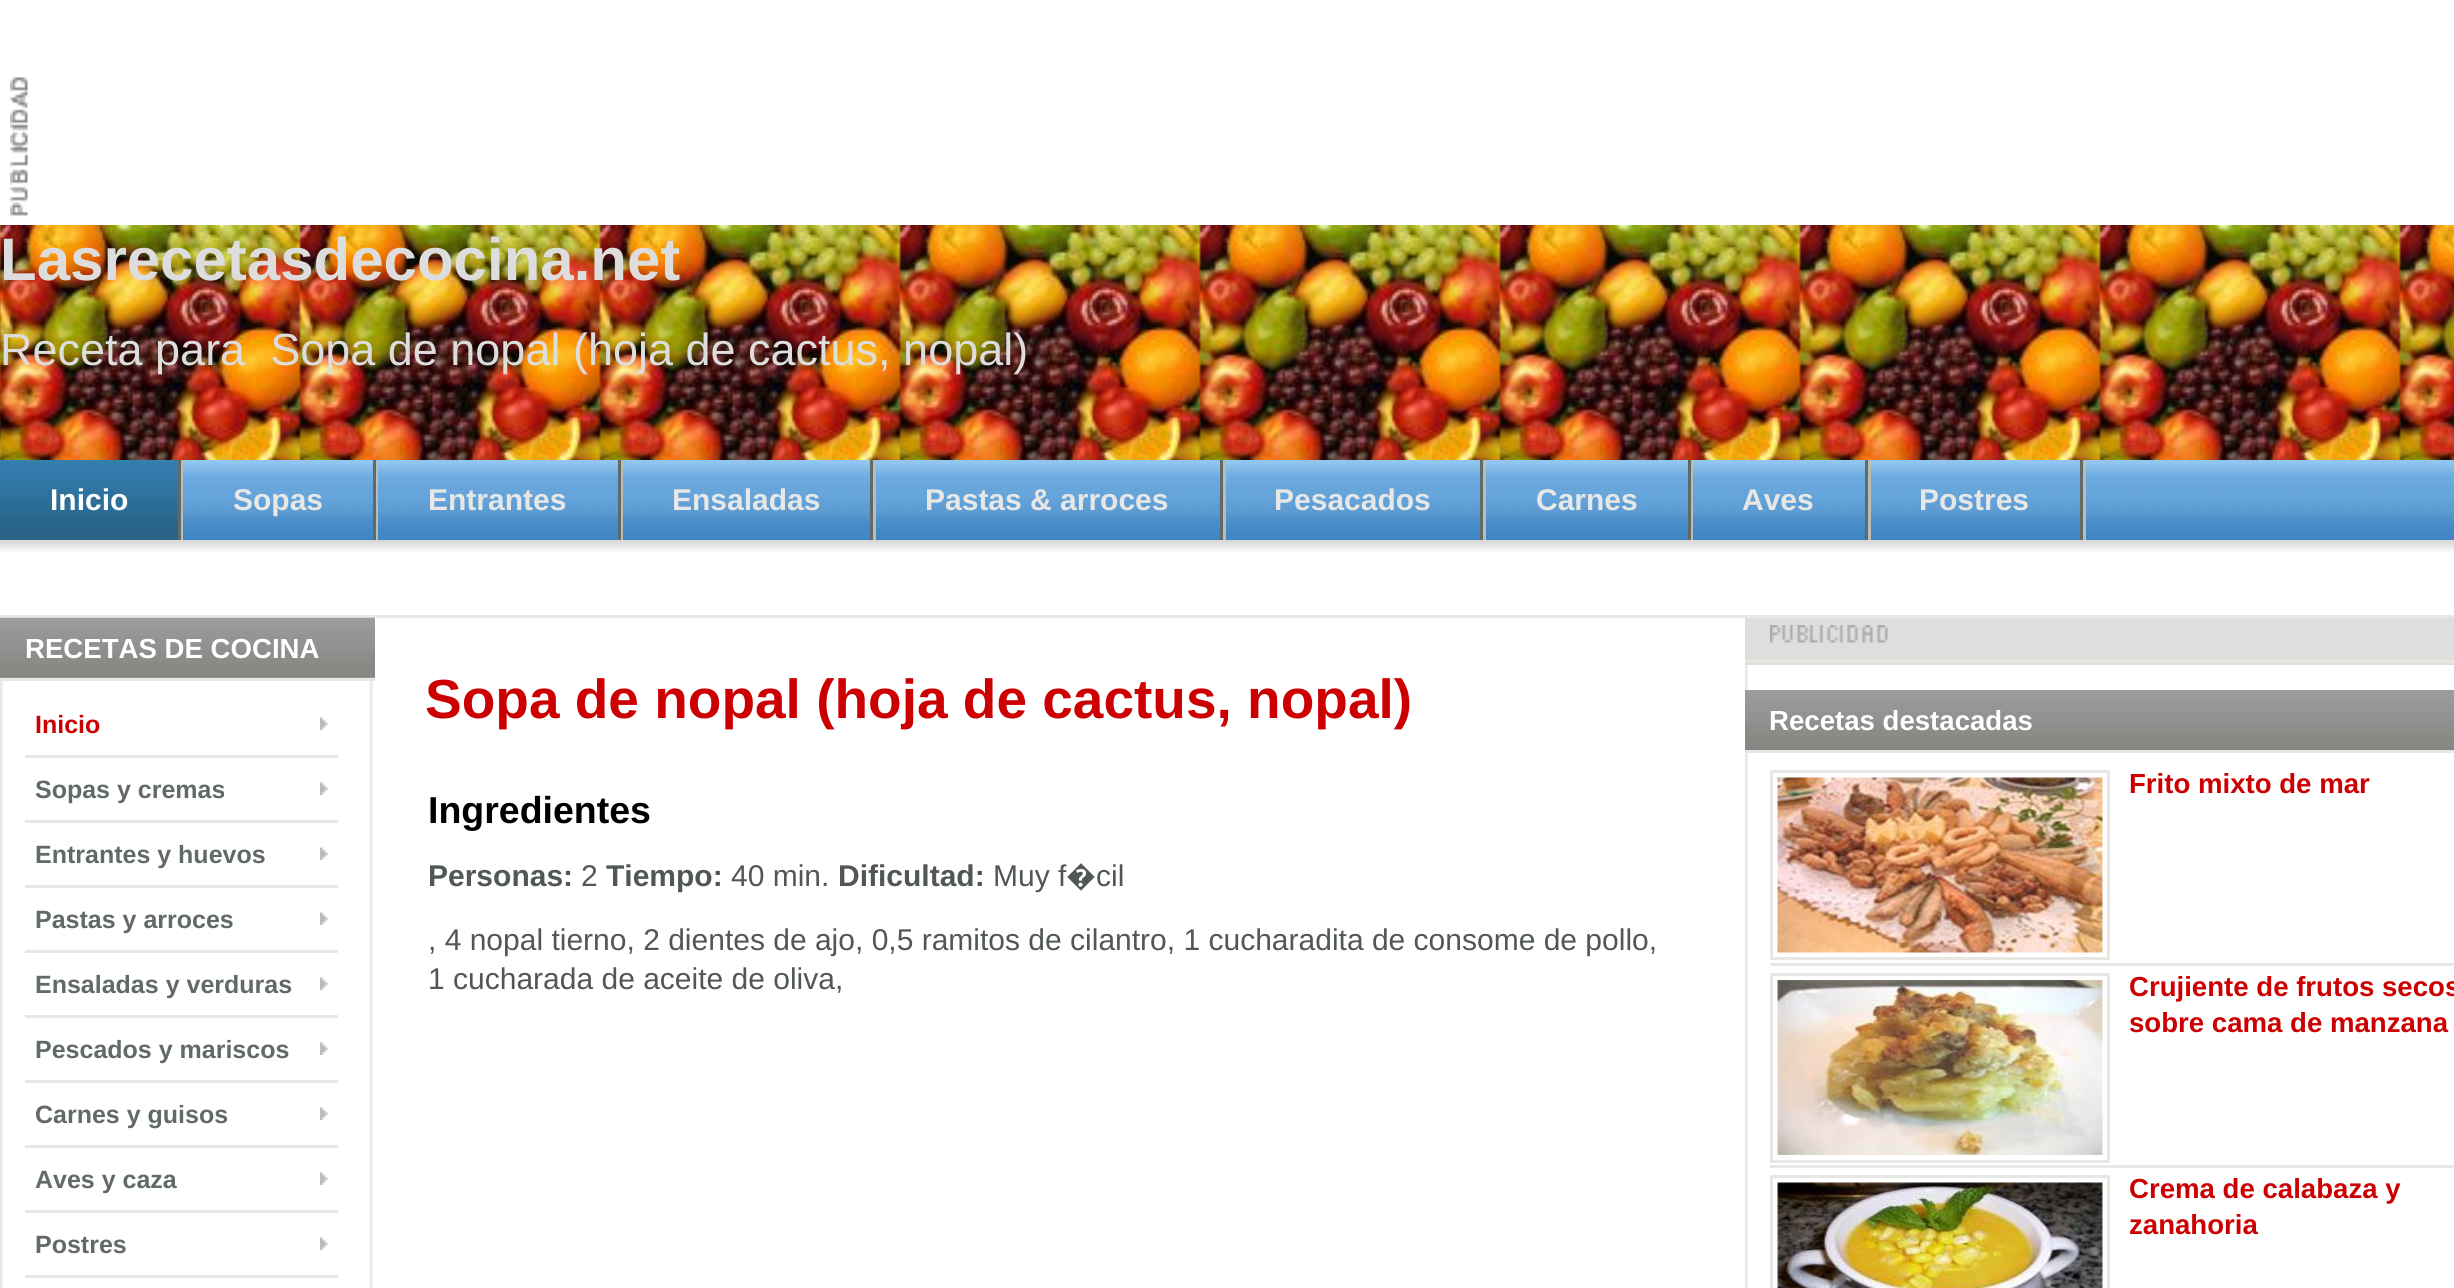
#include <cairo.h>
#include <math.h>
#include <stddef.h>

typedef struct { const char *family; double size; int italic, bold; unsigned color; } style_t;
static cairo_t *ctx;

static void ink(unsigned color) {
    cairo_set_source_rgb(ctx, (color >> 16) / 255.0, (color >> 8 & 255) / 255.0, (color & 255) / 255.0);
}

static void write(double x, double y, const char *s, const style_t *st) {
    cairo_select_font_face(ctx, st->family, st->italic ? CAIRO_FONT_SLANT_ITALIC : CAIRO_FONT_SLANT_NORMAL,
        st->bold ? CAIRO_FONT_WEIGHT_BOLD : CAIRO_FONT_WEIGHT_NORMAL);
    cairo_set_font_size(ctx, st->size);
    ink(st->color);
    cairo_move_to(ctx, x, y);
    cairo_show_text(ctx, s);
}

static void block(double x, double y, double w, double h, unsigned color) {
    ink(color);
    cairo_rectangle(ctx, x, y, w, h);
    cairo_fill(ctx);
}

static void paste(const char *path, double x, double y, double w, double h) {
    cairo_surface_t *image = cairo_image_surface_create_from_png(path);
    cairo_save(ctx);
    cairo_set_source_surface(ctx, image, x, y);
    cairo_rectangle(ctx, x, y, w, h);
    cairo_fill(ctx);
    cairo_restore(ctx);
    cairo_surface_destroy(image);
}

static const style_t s1 = {"Liberation Sans", 60, 0, 1, 0xdddddd};
static const style_t s2 = {"Liberation Sans", 45, 0, 0, 0xdddddd};
static const style_t s3 = {"Liberation Sans", 30, 0, 1, 0xffffff};
static const style_t s4 = {"Liberation Sans", 30, 0, 1, 0xe7e8e6};
static const style_t s5 = {"Liberation Sans", 27.6, 0, 1, 0xffffff};
static const style_t s6 = {"Liberation Sans", 25, 0, 1, 0xcc0000};
static const style_t s7 = {"Liberation Sans", 25, 0, 1, 0x626a69};
static const style_t s8 = {"Liberation Sans", 55, 0, 1, 0xcc0000};
static const style_t s9 = {"Liberation Sans", 37.5, 0, 1, 0x000000};
static const style_t s10 = {"Liberation Sans", 30, 0, 1, 0x515756};
static const style_t s11 = {"Liberation Sans", 30, 0, 0, 0x515756};
static const style_t s12 = {"Noto Sans", 30, 0, 0, 0x515756};
static const style_t s13 = {"Liberation Sans", 27.6, 0, 1, 0xcc0000};

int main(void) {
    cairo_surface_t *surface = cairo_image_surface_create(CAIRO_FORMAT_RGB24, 2454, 1288);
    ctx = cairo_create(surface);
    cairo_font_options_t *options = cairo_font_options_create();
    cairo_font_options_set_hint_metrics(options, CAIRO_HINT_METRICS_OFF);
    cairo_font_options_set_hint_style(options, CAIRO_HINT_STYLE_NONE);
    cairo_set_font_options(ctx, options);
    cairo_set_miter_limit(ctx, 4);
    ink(0xffffff);
    cairo_paint(ctx);
    paste("pic1.png", 10, 77, 18, 141);
    paste("pic2.png", 0, 225, 2454, 235);
    write(0, 280, "Lasrecetasdecocina.net", &s1);
    write(0, 365, "Receta para  Sopa de nopal (hoja de cactus, nopal)", &s2);
    paste("pic3.png", 0, 540, 2454, 12);
    paste("pic4.png", 183, 460, 2271, 80);
    block(181, 460, 2, 80, 0xbabdb6);
    paste("pic5.png", 0, 460, 178, 80);
    block(178, 460, 3, 80, 0x626a69);
    write(50, 510, "Inicio", &s3);
    block(376, 460, 2, 80, 0xbabdb6);
    block(373, 460, 3, 80, 0x626a69);
    write(233, 510, "Sopas", &s4);
    block(621, 460, 2, 80, 0xbabdb6);
    block(618, 460, 3, 80, 0x626a69);
    write(428, 510, "Entrantes", &s4);
    block(873, 460, 3, 80, 0xbabdb6);
    block(870, 460, 3, 80, 0x626a69);
    write(672, 510, "Ensaladas", &s4);
    block(1223, 460, 3, 80, 0xbabdb6);
    block(1220, 460, 3, 80, 0x626a69);
    write(925, 510, "Pastas & arroces", &s4);
    block(1483, 460, 3, 80, 0xbabdb6);
    block(1480, 460, 3, 80, 0x626a69);
    write(1274, 510, "Pesacados", &s4);
    block(1691, 460, 2, 80, 0xbabdb6);
    block(1688, 460, 3, 80, 0x626a69);
    write(1536, 510, "Carnes", &s4);
    block(1868, 460, 3, 80, 0xbabdb6);
    block(1865, 460, 3, 80, 0x626a69);
    write(1742, 510, "Aves", &s4);
    block(2083, 460, 3, 80, 0xbabdb6);
    block(2080, 460, 3, 80, 0x626a69);
    write(1919, 510, "Postres", &s4);
    paste("pic6.png", 0, 681, 373, 607);
    block(0, 615, 2454, 3, 0xe7e8e6);
    paste("pic7.png", 1745, 617, 5, 671);
    block(0, 677, 375, 1, 0xa8a8a8);
    paste("pic8.png", 0, 617, 375, 61);
    block(0, 678, 375, 3, 0xe7e8e6);
    write(25, 658, "RECETAS DE COCINA", &s5);
    paste("pic9.png", 320, 717, 8, 13);
    block(25, 755, 313, 3, 0xe7e8e6);
    write(35, 733, "Inicio", &s6);
    paste("pic9.png", 320, 782, 8, 13);
    block(25, 820, 313, 3, 0xe7e8e6);
    write(35, 798, "Sopas y cremas", &s7);
    paste("pic9.png", 320, 847, 8, 13);
    block(25, 885, 313, 3, 0xe7e8e6);
    write(35, 863, "Entrantes y huevos", &s7);
    paste("pic9.png", 320, 912, 8, 13);
    block(25, 950, 313, 3, 0xe7e8e6);
    write(35, 928, "Pastas y arroces", &s7);
    paste("pic9.png", 320, 977, 8, 13);
    block(25, 1015, 313, 3, 0xe7e8e6);
    write(35, 993, "Ensaladas y verduras", &s7);
    paste("pic9.png", 320, 1042, 8, 13);
    block(25, 1080, 313, 3, 0xe7e8e6);
    write(35, 1058, "Pescados y mariscos", &s7);
    paste("pic9.png", 320, 1107, 8, 13);
    block(25, 1145, 313, 3, 0xe7e8e6);
    write(35, 1123, "Carnes y guisos", &s7);
    paste("pic10.png", 320, 1172, 8, 13);
    block(25, 1210, 313, 3, 0xe7e8e6);
    write(35, 1188, "Aves y caza", &s7);
    paste("pic9.png", 320, 1237, 8, 13);
    block(25, 1275, 313, 3, 0xe7e8e6);
    write(35, 1253, "Postres", &s7);
    write(425, 718, "Sopa de nopal (hoja de cactus, nopal)", &s8);
    write(428, 823, "Ingredientes", &s9);
    write(428, 886, "Personas:", &s10);
    write(581, 886, "2", &s11);
    write(606, 886, "Tiempo:", &s10);
    write(731, 886, "40 min.", &s11);
    write(838, 886, "Dificultad:", &s10);
    write(993, 886, "Muy f", &s11);
    write(1066, 886, "�", &s12);
    write(1096, 886, "cil", &s11);
    write(428, 950, ", 4 nopal tierno, 2 dientes de ajo, 0,5 ramitos de cilantro, 1 cucharadita de consome de pollo,", &s11);
    write(428, 989, "1 cucharada de aceite de oliva,", &s11);
    block(1745, 618, 709, 47, 0xdededc);
    paste("pic11.png", 1770, 625, 118, 18);
    block(1745, 660, 709, 3, 0xe8e6e0);
    paste("pic12.png", 1745, 690, 709, 60);
    block(1745, 750, 709, 3, 0xe7e8e6);
    write(1769, 730, "Recetas destacadas", &s5);
    block(1770, 963, 684, 3, 0xe7e8e6);
    cairo_rectangle(ctx, 1771.5, 771.5, 337, 187);
    cairo_set_line_width(ctx, 3);
    cairo_stroke(ctx);
    paste("pic13.png", 1777, 777, 326, 176);
    write(2129, 793, "Frito mixto de mar", &s13);
    block(1770, 1165, 684, 3, 0xe7e8e6);
    cairo_rectangle(ctx, 1771.5, 974.5, 337, 187);
    cairo_stroke(ctx);
    paste("pic14.png", 1777, 980, 326, 175);
    write(2129, 996, "Crujiente de frutos secos", &s13);
    write(2129, 1032, "sobre cama de manzana", &s13);
    cairo_rectangle(ctx, 1771.5, 1176.5, 337, 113);
    ink(0xe7e8e6);
    cairo_stroke(ctx);
    paste("pic15.png", 1777, 1182, 326, 106);
    write(2129, 1198, "Crema de calabaza y", &s13);
    write(2129, 1234, "zanahoria", &s13);
    cairo_surface_write_to_png(surface, "screenshot.png");
    cairo_font_options_destroy(options);
    cairo_destroy(ctx);
    cairo_surface_destroy(surface);
    return 0;
}
